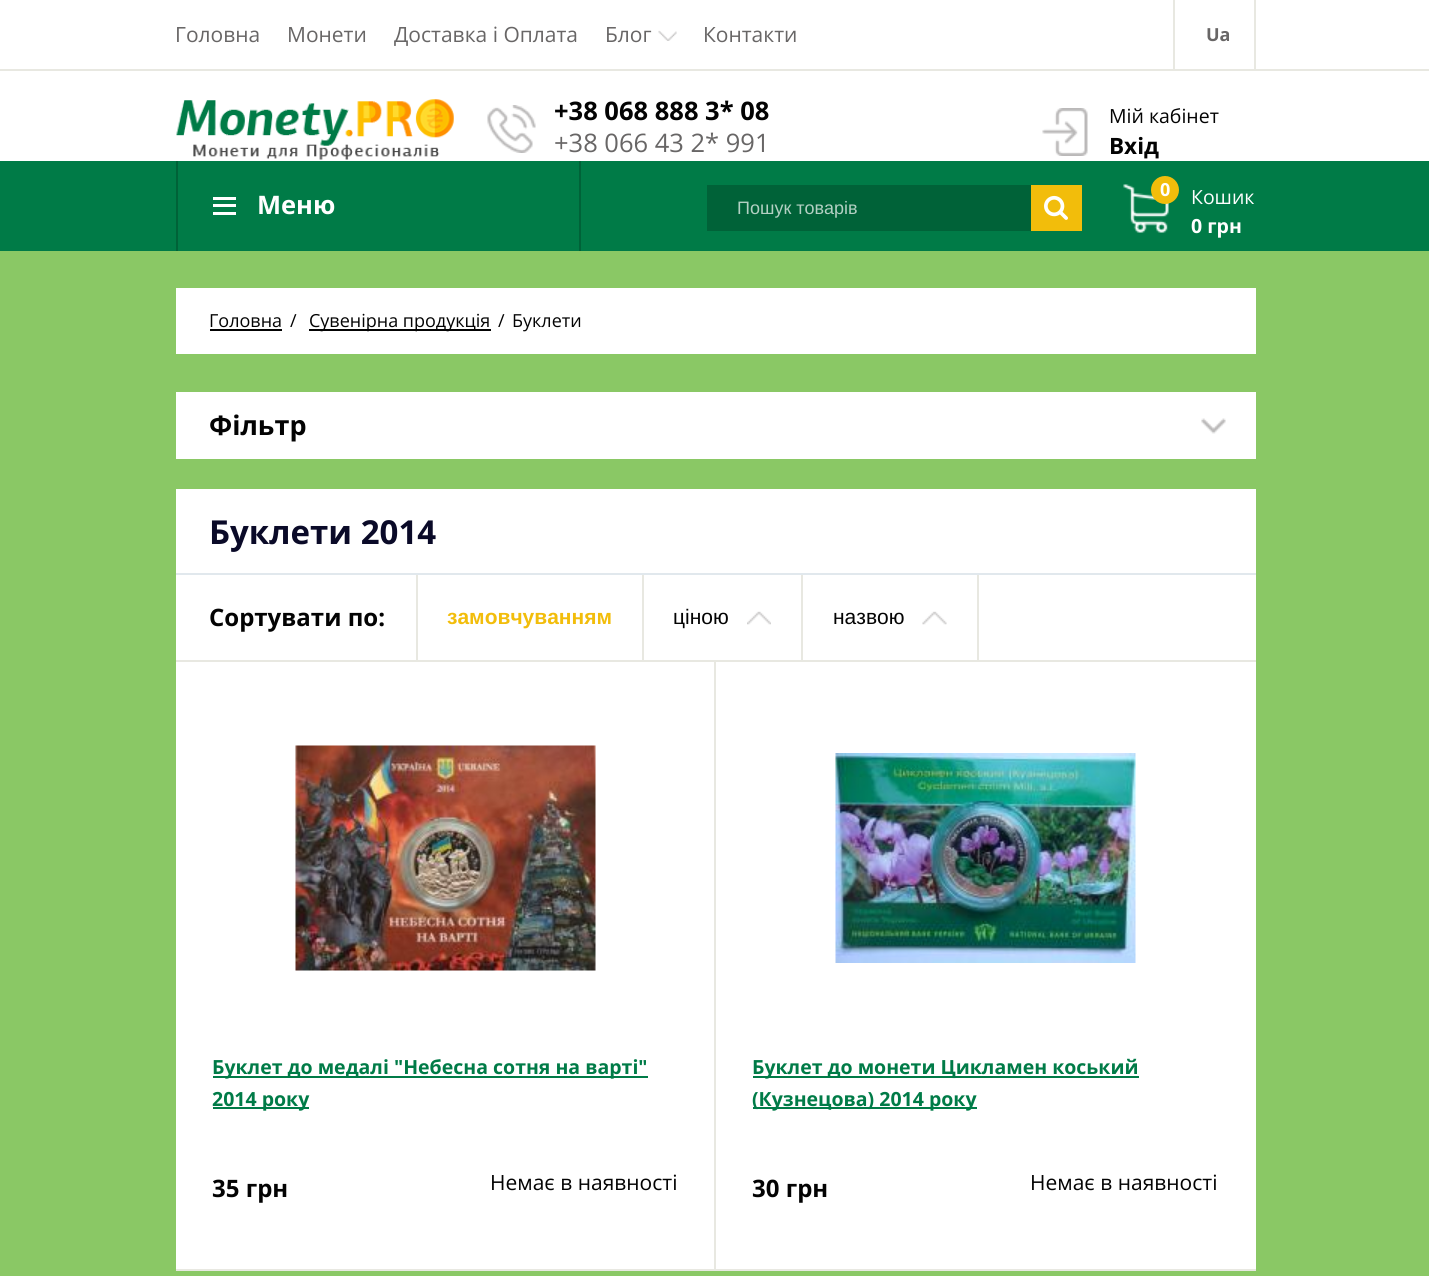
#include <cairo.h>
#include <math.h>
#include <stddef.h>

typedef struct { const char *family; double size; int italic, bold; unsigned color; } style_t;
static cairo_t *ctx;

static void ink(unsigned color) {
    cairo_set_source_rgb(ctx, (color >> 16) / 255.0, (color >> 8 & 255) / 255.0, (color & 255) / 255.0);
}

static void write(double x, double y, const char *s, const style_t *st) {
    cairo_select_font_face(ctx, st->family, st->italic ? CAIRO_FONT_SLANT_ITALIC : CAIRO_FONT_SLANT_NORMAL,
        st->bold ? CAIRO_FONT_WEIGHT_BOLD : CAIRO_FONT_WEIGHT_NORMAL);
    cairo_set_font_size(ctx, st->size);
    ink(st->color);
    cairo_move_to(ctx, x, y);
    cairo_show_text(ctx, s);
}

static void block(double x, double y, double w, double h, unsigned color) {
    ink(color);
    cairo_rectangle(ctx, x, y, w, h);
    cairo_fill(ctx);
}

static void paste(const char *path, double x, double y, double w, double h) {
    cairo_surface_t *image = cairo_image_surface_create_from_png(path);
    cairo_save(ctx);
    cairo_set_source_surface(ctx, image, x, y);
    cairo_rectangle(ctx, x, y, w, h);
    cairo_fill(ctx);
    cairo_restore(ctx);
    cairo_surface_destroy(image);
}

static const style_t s1 = {"Open Sans", 21, 0, 0, 0x686666};
static const style_t s2 = {"Open Sans", 18, 0, 1, 0x686666};
static const style_t s3 = {"Open Sans", 25.5, 0, 1, 0x030303};
static const style_t s4 = {"Open Sans", 25.5, 0, 0, 0x686666};
static const style_t s5 = {"Open Sans", 19.5, 0, 0, 0x030303};
static const style_t s6 = {"Open Sans", 22.5, 0, 1, 0x030303};
static const style_t s7 = {"Open Sans", 25.5, 0, 1, 0xffffff};
static const style_t s8 = {"Liberation Sans", 18, 0, 0, 0xb3d0c3};
static const style_t s9 = {"Open Sans", 18, 0, 1, 0xffffff};
static const style_t s10 = {"Open Sans", 19.5, 0, 0, 0xffffff};
static const style_t s11 = {"Open Sans", 19.5, 0, 1, 0xffffff};
static const style_t s12 = {"Open Sans", 18, 0, 0, 0x030303};
static const style_t s13 = {"Open Sans", 27, 0, 1, 0x030303};
static const style_t s14 = {"Open Sans", 33, 0, 1, 0x0a0a28};
static const style_t s15 = {"Open Sans", 24, 0, 1, 0x030303};
static const style_t s16 = {"Liberation Sans", 21, 0, 1, 0xf2bd0b};
static const style_t s17 = {"Liberation Sans", 21, 0, 0, 0x030303};
static const style_t s18 = {"Open Sans", 19.5, 0, 1, 0x007b47};
static const style_t s19 = {"Open Sans", 21, 0, 0, 0x030303};

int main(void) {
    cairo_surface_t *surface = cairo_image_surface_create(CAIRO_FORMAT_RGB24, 1429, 1276);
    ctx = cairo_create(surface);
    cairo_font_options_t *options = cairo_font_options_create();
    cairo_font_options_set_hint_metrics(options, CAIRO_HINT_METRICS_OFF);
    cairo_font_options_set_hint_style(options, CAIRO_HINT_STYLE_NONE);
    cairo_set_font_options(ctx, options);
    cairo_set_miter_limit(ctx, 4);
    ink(0x8ac865);
    cairo_paint(ctx);
    block(0, 0, 1429, 161, 0xffffff);
    block(0, 69, 1429, 2, 0xe8e8e1);
    write(175, 42, "Головна", &s1);
    write(287, 42, "Монети", &s1);
    write(394, 42, "Доставка і Оплата", &s1);
    write(605, 42, "Блог", &s1);
    paste("pic1.png", 658, 30, 19, 11);
    write(703, 42, "Контакти", &s1);
    block(1254, 0, 2, 69, 0xe8e8e1);
    block(1173, 0, 2, 69, 0xe8e8e1);
    write(1206, 41, "Ua", &s2);
    paste("pic2.png", 176, 99, 278, 61);
    paste("pic3.png", 487, 105, 49, 48);
    write(554, 120, "+38 068 888 3* 08", &s3);
    write(554, 152, "+38 066 43 2* 991", &s4);
    paste("pic4.png", 1042, 108, 46, 48);
    write(1109, 123, "Мій кабінет", &s5);
    write(1109, 154, "Вхід", &s6);
    block(0, 161, 1429, 90, 0x007b47);
    block(579, 161, 2, 90, 0x006238);
    block(176, 161, 2, 90, 0x006238);
    block(213, 197, 23, 3, 0xffffff);
    write(257, 214, "Меню", &s7);
    block(213, 204, 23, 3, 0xffffff);
    block(213, 212, 23, 3, 0xffffff);
    block(707, 185, 324, 46, 0x006238);
    write(737, 214, "Пошук товарів", &s8);
    block(1031, 185, 51, 46, 0xf2bd0b);
    paste("pic5.png", 1044, 195, 24, 25);
    paste("pic6.png", 1123, 184, 46, 49);
    cairo_arc(ctx, 1165, 190, 14, 0, 2 * M_PI);
    cairo_fill(ctx);
    write(1160, 196, "0", &s9);
    write(1191, 204, "Кошик", &s10);
    write(1191, 233, "0 грн", &s11);
    block(176, 288, 1080, 66, 0xffffff);
    write(209, 327, "Головна", &s12);
    block(210, 329, 72, 2, 0x030303);
    write(290, 327, "/", &s12);
    block(309, 329, 182, 2, 0x030303);
    write(309, 327, "Сувенірна продукція", &s12);
    write(498, 327, "/", &s12);
    write(512, 327, "Буклети", &s12);
    block(176, 392, 1080, 67, 0xffffff);
    write(209, 435, "Фільтр", &s13);
    paste("pic7.png", 1201, 418, 25, 16);
    block(176, 489, 1080, 84, 0xffffff);
    block(176, 573, 1080, 2, 0xe1e8ed);
    write(209, 544, "Буклети 2014", &s14);
    block(176, 575, 1080, 85, 0xffffff);
    block(176, 660, 1080, 2, 0xe8e8e1);
    block(416, 575, 2, 85, 0xe8e8e1);
    write(209, 626, "Сортувати по:", &s15);
    block(642, 575, 2, 85, 0xe8e8e1);
    write(447, 624, "замовчуванням", &s16);
    block(801, 575, 2, 85, 0xe8e8e1);
    write(673, 624, "ціною", &s17);
    paste("pic8.png", 747, 611, 24, 14);
    block(977, 575, 2, 85, 0xe8e8e1);
    write(833, 624, "назвою", &s17);
    paste("pic9.png", 922, 611, 25, 14);
    block(176, 662, 538, 607, 0xffffff);
    block(714, 662, 2, 607, 0xe8e8e1);
    block(176, 1269, 1080, 2, 0xe8e8e1);
    paste("pic10.png", 295, 745, 301, 226);
    block(213, 1076, 435, 2, 0x007b47);
    write(212, 1074, "Буклет до медалі \"Небесна сотня на варті\"", &s18);
    block(213, 1107, 96, 2, 0x007b47);
    write(212, 1106, "2014 року", &s18);
    write(212, 1197, "35 грн", &s15);
    write(490, 1190, "Немає в наявності", &s19);
    block(716, 662, 540, 607, 0xffffff);
    paste("pic11.png", 835, 753, 301, 210);
    block(753, 1076, 386, 2, 0x007b47);
    write(752, 1074, "Буклет до монети Цикламен коський", &s18);
    block(753, 1107, 224, 2, 0x007b47);
    write(752, 1106, "(Кузнецова) 2014 року", &s18);
    write(752, 1197, "30 грн", &s15);
    write(1030, 1190, "Немає в наявності", &s19);
    cairo_surface_write_to_png(surface, "screenshot.png");
    cairo_font_options_destroy(options);
    cairo_destroy(ctx);
    cairo_surface_destroy(surface);
    return 0;
}
